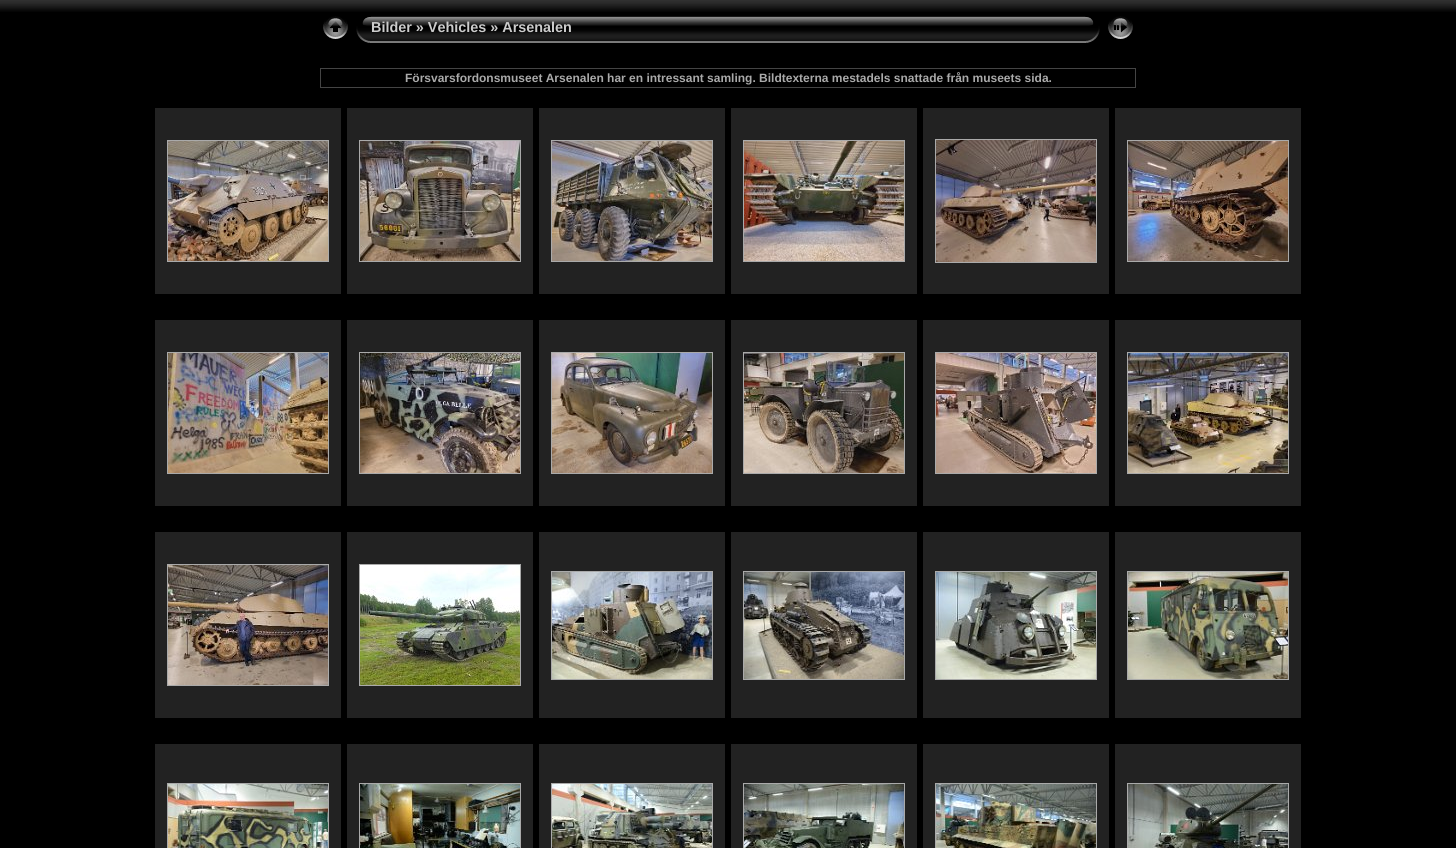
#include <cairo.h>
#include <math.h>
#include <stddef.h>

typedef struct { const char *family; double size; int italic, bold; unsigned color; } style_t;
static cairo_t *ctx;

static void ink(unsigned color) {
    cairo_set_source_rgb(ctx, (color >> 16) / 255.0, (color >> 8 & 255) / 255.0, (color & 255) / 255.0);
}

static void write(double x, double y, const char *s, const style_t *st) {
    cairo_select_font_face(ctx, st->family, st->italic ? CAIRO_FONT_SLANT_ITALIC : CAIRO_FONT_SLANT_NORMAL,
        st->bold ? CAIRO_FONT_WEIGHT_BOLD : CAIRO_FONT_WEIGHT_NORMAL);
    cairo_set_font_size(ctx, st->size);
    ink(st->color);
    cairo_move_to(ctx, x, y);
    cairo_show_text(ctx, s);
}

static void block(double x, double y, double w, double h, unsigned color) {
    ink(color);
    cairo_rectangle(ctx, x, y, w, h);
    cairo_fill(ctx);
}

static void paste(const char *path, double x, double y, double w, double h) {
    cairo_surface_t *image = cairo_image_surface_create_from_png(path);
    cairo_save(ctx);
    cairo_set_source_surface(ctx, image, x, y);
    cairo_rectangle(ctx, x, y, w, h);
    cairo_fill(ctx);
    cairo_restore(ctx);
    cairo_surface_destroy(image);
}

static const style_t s1 = {"Liberation Sans", 14.4, 0, 1, 0xcccccc};
static const style_t s2 = {"Liberation Sans", 12, 0, 1, 0xaaaaaa};

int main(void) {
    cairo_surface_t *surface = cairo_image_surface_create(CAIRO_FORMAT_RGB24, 1456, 848);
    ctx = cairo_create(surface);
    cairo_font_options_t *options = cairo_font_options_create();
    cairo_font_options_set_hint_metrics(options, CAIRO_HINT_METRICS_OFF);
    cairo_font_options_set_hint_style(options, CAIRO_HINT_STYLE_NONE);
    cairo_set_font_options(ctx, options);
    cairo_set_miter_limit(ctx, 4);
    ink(0x000000);
    cairo_paint(ctx);
    paste("pic1.png", 0, 0, 1456, 12);
    paste("pic2.png", 323, 16, 25, 23);
    paste("pic3.png", 356, 16, 15, 27);
    paste("pic4.png", 371, 16, 714, 27);
    write(371, 32, "Bilder » Vehicles » Arsenalen", &s1);
    paste("pic5.png", 1085, 16, 15, 27);
    paste("pic6.png", 1108, 16, 25, 23);
    block(320, 68, 816, 1, 0x444444);
    block(1135, 68, 1, 20, 0x444444);
    block(320, 87, 816, 1, 0x444444);
    block(320, 68, 1, 20, 0x444444);
    write(405, 82, "Försvarsfordonsmuseet Arsenalen har en intressant samling. Bildtexterna mestadels snattade från museets sida.", &s2);
    block(155, 108, 186, 186, 0x222222);
    cairo_rectangle(ctx, 167.5, 140.5, 161, 121);
    ink(0xaaaaaa);
    cairo_set_line_width(ctx, 1);
    cairo_stroke(ctx);
    paste("pic7.png", 168, 141, 160, 120);
    block(347, 108, 186, 186, 0x222222);
    cairo_rectangle(ctx, 359.5, 140.5, 161, 121);
    ink(0xaaaaaa);
    cairo_stroke(ctx);
    paste("pic8.png", 360, 141, 160, 120);
    block(539, 108, 186, 186, 0x222222);
    cairo_rectangle(ctx, 551.5, 140.5, 161, 121);
    ink(0xaaaaaa);
    cairo_stroke(ctx);
    paste("pic9.png", 552, 141, 160, 120);
    block(731, 108, 186, 186, 0x222222);
    cairo_rectangle(ctx, 743.5, 140.5, 161, 121);
    ink(0xaaaaaa);
    cairo_stroke(ctx);
    paste("pic10.png", 744, 141, 160, 120);
    block(923, 108, 186, 186, 0x222222);
    cairo_rectangle(ctx, 935.5, 139.5, 161, 123);
    ink(0xaaaaaa);
    cairo_stroke(ctx);
    paste("pic11.png", 936, 140, 160, 122);
    block(1115, 108, 186, 186, 0x222222);
    cairo_rectangle(ctx, 1127.5, 140.5, 161, 121);
    ink(0xaaaaaa);
    cairo_stroke(ctx);
    paste("pic12.png", 1128, 141, 160, 120);
    block(155, 320, 186, 186, 0x222222);
    cairo_rectangle(ctx, 167.5, 352.5, 161, 121);
    ink(0xaaaaaa);
    cairo_stroke(ctx);
    paste("pic13.png", 168, 353, 160, 120);
    block(347, 320, 186, 186, 0x222222);
    cairo_rectangle(ctx, 359.5, 352.5, 161, 121);
    ink(0xaaaaaa);
    cairo_stroke(ctx);
    paste("pic14.png", 360, 353, 160, 120);
    block(539, 320, 186, 186, 0x222222);
    cairo_rectangle(ctx, 551.5, 352.5, 161, 121);
    ink(0xaaaaaa);
    cairo_stroke(ctx);
    paste("pic15.png", 552, 353, 160, 120);
    block(731, 320, 186, 186, 0x222222);
    cairo_rectangle(ctx, 743.5, 352.5, 161, 121);
    ink(0xaaaaaa);
    cairo_stroke(ctx);
    paste("pic16.png", 744, 353, 160, 120);
    block(923, 320, 186, 186, 0x222222);
    cairo_rectangle(ctx, 935.5, 352.5, 161, 121);
    ink(0xaaaaaa);
    cairo_stroke(ctx);
    paste("pic17.png", 936, 353, 160, 120);
    block(1115, 320, 186, 186, 0x222222);
    cairo_rectangle(ctx, 1127.5, 352.5, 161, 121);
    ink(0xaaaaaa);
    cairo_stroke(ctx);
    paste("pic18.png", 1128, 353, 160, 120);
    block(155, 532, 186, 186, 0x222222);
    cairo_rectangle(ctx, 167.5, 564.5, 161, 121);
    ink(0xaaaaaa);
    cairo_stroke(ctx);
    paste("pic19.png", 168, 565, 160, 120);
    block(347, 532, 186, 186, 0x222222);
    cairo_rectangle(ctx, 359.5, 564.5, 161, 121);
    ink(0xaaaaaa);
    cairo_stroke(ctx);
    paste("pic20.png", 360, 565, 160, 120);
    block(539, 532, 186, 186, 0x222222);
    cairo_rectangle(ctx, 551.5, 571.5, 161, 108);
    ink(0xaaaaaa);
    cairo_stroke(ctx);
    paste("pic21.png", 552, 572, 160, 107);
    block(731, 532, 186, 186, 0x222222);
    cairo_rectangle(ctx, 743.5, 571.5, 161, 108);
    ink(0xaaaaaa);
    cairo_stroke(ctx);
    paste("pic22.png", 744, 572, 160, 107);
    block(923, 532, 186, 186, 0x222222);
    cairo_rectangle(ctx, 935.5, 571.5, 161, 108);
    ink(0xaaaaaa);
    cairo_stroke(ctx);
    paste("pic23.png", 936, 572, 160, 107);
    block(1115, 532, 186, 186, 0x222222);
    cairo_rectangle(ctx, 1127.5, 571.5, 161, 108);
    ink(0xaaaaaa);
    cairo_stroke(ctx);
    paste("pic24.png", 1128, 572, 160, 107);
    block(155, 744, 186, 104, 0x222222);
    cairo_rectangle(ctx, 167.5, 783.5, 161, 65);
    ink(0xaaaaaa);
    cairo_stroke(ctx);
    paste("pic25.png", 168, 784, 160, 64);
    block(347, 744, 186, 104, 0x222222);
    cairo_rectangle(ctx, 359.5, 783.5, 161, 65);
    ink(0xaaaaaa);
    cairo_stroke(ctx);
    paste("pic26.png", 360, 784, 160, 64);
    block(539, 744, 186, 104, 0x222222);
    cairo_rectangle(ctx, 551.5, 783.5, 161, 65);
    ink(0xaaaaaa);
    cairo_stroke(ctx);
    paste("pic27.png", 552, 784, 160, 64);
    block(731, 744, 186, 104, 0x222222);
    cairo_rectangle(ctx, 743.5, 783.5, 161, 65);
    ink(0xaaaaaa);
    cairo_stroke(ctx);
    paste("pic28.png", 744, 784, 160, 64);
    block(923, 744, 186, 104, 0x222222);
    cairo_rectangle(ctx, 935.5, 783.5, 161, 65);
    ink(0xaaaaaa);
    cairo_stroke(ctx);
    paste("pic29.png", 936, 784, 160, 64);
    block(1115, 744, 186, 104, 0x222222);
    cairo_rectangle(ctx, 1127.5, 783.5, 161, 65);
    ink(0xaaaaaa);
    cairo_stroke(ctx);
    paste("pic30.png", 1128, 784, 160, 64);
    cairo_surface_write_to_png(surface, "screenshot.png");
    cairo_font_options_destroy(options);
    cairo_destroy(ctx);
    cairo_surface_destroy(surface);
    return 0;
}
